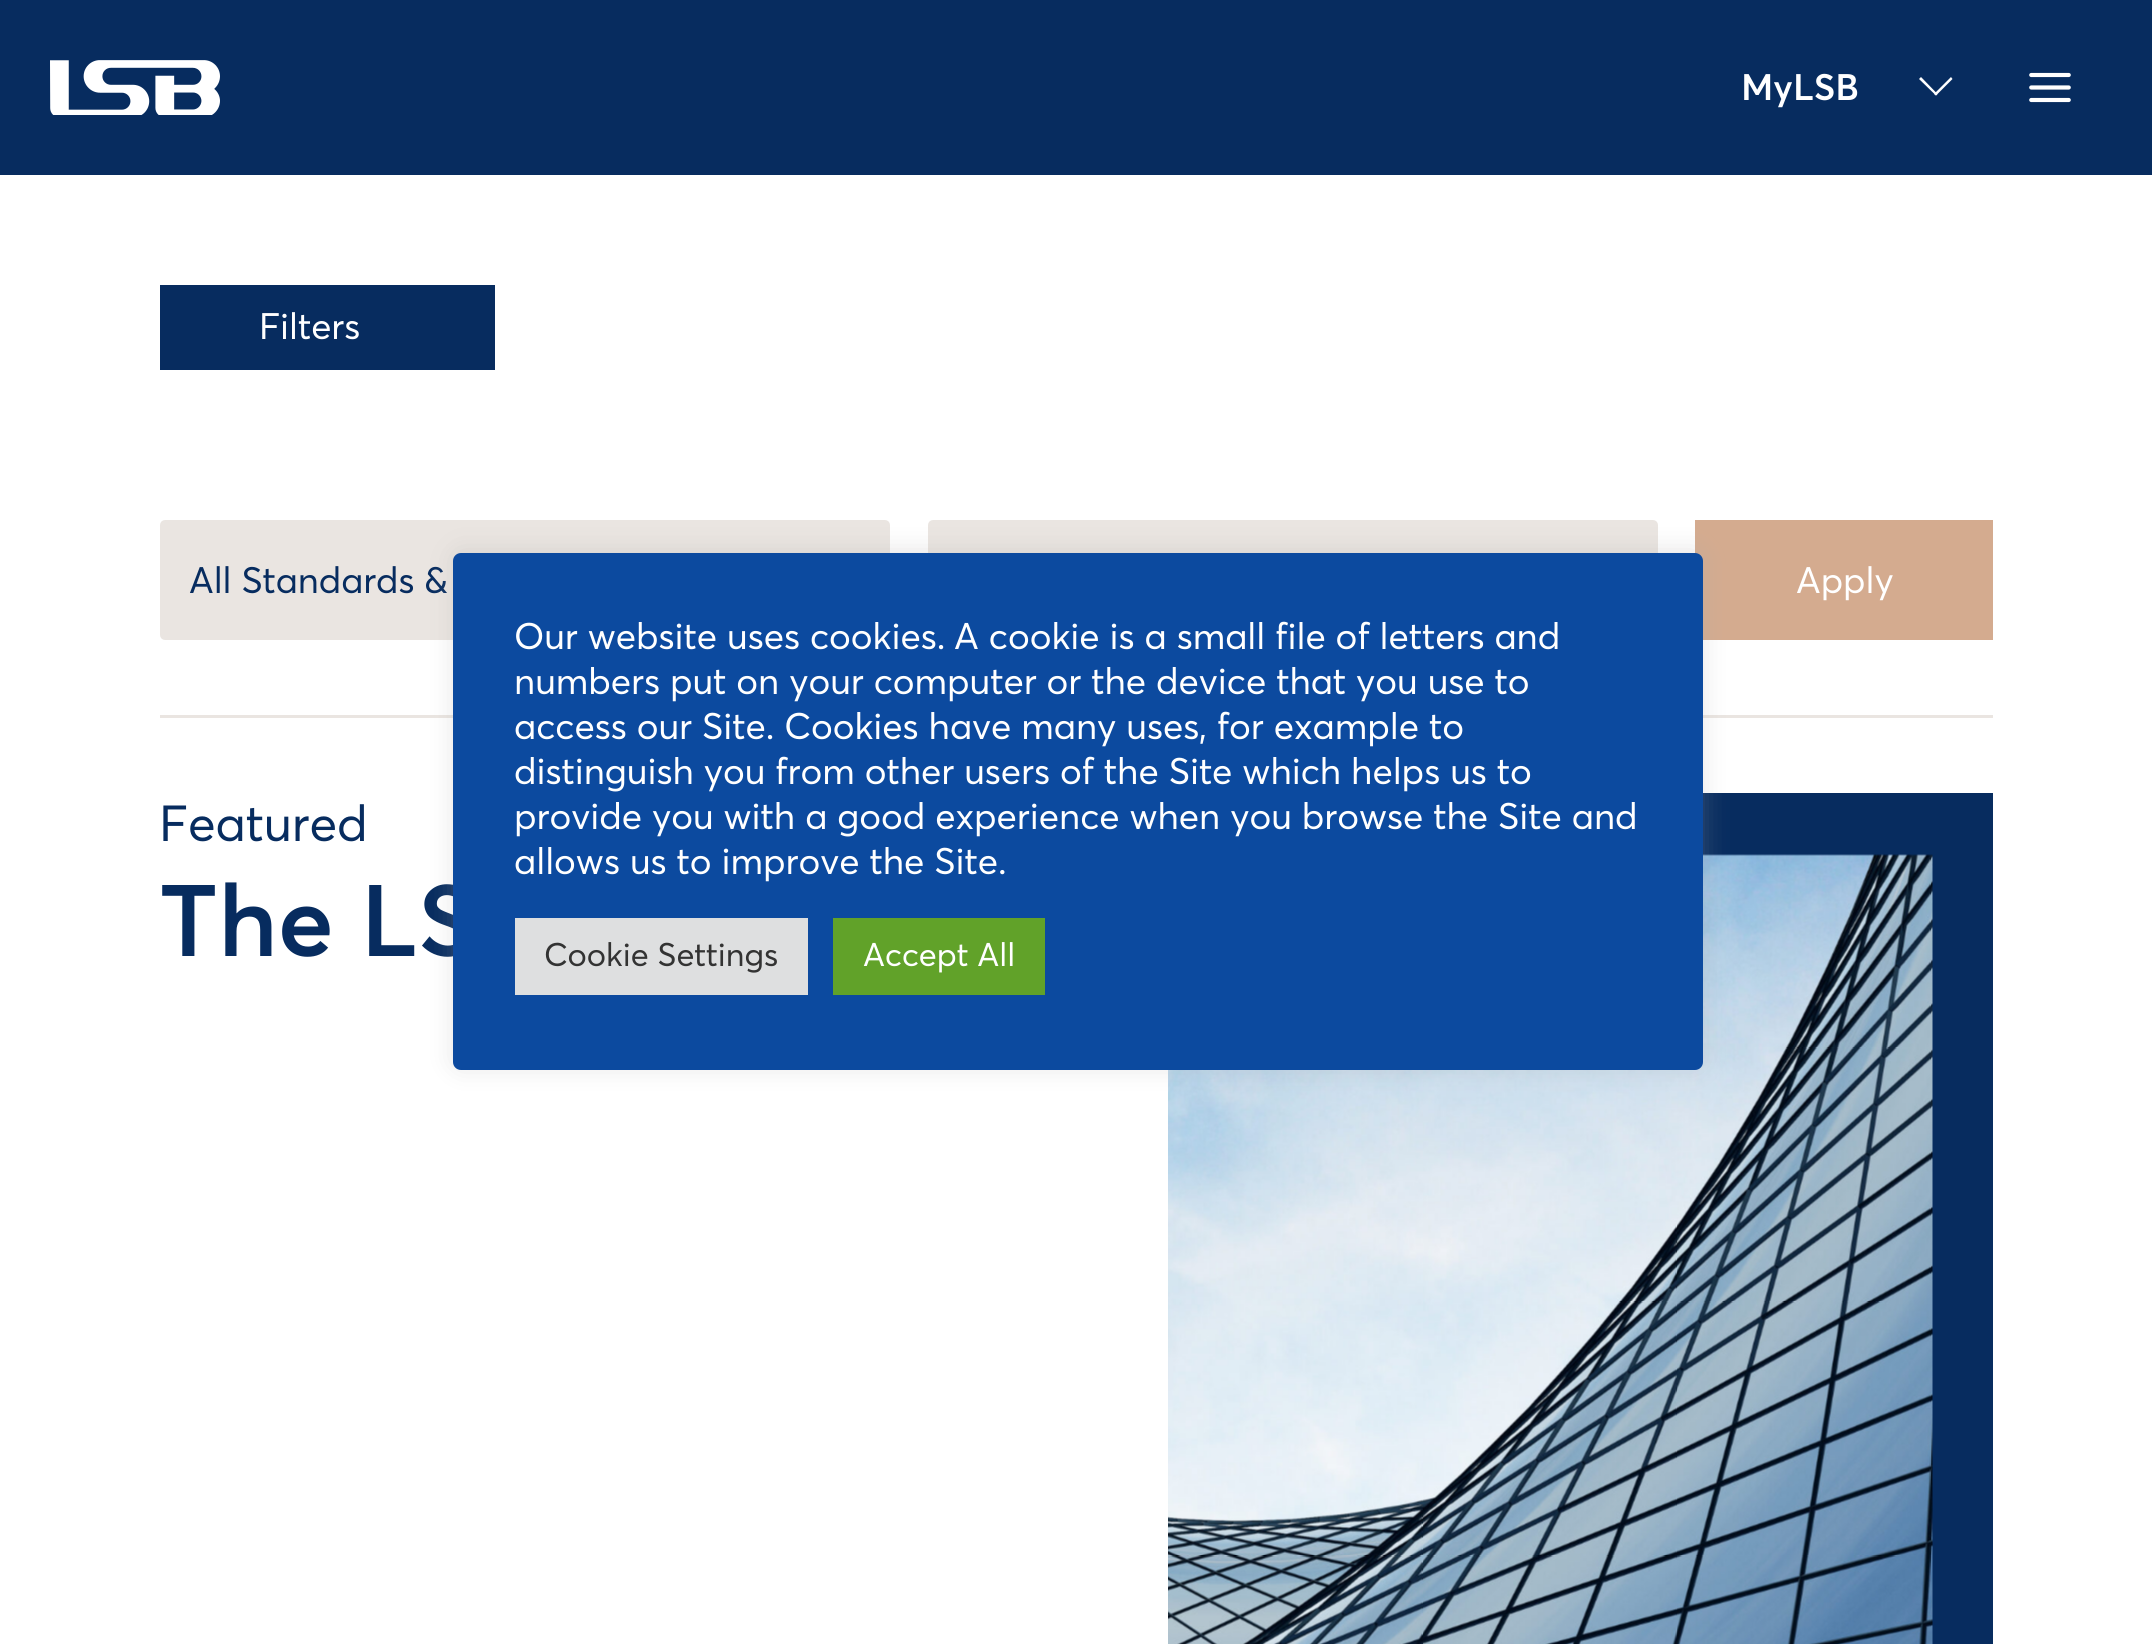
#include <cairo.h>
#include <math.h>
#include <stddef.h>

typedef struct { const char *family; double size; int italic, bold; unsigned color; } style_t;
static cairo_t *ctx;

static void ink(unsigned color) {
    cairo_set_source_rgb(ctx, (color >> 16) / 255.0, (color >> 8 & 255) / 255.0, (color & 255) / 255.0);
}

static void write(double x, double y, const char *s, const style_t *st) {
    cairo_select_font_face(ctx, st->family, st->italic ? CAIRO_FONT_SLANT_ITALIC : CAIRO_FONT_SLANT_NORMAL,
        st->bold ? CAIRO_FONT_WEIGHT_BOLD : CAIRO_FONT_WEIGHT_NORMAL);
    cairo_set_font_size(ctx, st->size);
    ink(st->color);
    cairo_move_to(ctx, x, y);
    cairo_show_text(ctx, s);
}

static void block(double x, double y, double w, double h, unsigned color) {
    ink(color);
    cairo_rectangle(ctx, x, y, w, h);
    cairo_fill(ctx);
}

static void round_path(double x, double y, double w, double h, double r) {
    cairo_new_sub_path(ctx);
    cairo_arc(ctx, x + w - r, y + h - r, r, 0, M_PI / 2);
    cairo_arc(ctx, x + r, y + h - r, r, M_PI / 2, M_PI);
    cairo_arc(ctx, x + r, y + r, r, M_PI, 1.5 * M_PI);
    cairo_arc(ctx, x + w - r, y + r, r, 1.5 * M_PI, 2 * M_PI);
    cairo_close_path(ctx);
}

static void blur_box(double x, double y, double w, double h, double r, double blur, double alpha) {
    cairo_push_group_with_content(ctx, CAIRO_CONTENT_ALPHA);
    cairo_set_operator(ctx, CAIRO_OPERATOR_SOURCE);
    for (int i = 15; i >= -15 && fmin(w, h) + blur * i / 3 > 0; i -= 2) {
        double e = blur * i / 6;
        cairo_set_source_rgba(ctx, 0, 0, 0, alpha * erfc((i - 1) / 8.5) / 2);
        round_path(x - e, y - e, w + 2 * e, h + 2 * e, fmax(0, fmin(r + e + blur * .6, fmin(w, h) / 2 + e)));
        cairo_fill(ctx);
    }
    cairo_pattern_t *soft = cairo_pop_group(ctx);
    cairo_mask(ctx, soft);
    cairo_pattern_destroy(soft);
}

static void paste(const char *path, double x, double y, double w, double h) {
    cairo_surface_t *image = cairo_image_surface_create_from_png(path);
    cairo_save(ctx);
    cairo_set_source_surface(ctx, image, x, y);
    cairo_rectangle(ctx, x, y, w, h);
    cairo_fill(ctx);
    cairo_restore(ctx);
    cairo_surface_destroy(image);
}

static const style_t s1 = {"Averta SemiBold", 36.5, 0, 0, 0xffffff};
static const style_t s2 = {"Averta", 36.5, 0, 0, 0xffffff};
static const style_t s3 = {"Averta", 36.5, 0, 0, 0x072c5f};
static const style_t s4 = {"Averta", 50, 0, 0, 0x072c5f};
static const style_t s5 = {"Averta SemiBold", 100, 0, 0, 0x072c5f};
static const style_t s6 = {"Averta", 36.7, 0, 0, 0xffffff};
static const style_t s7 = {"Averta", 32.5, 0, 0, 0x333333};
static const style_t s8 = {"Averta", 32.5, 0, 0, 0xffffff};

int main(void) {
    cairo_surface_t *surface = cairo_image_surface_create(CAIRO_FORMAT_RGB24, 2152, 1644);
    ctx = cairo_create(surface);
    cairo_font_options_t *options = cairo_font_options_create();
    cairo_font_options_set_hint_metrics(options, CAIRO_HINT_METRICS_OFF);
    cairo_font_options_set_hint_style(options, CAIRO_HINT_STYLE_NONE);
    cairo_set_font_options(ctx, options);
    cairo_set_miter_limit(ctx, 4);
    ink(0xffffff);
    cairo_paint(ctx);
    block(0, 0, 2152, 175, 0x072c5f);
    paste("pic1.png", 50, 60, 170, 55);
    write(1741, 100, "MyLSB", &s1);
    cairo_new_path(ctx);
    cairo_move_to(ctx, 1952.5, 79);
    cairo_line_to(ctx, 1936, 95.5);
    cairo_line_to(ctx, 1934, 94);
    cairo_line_to(ctx, 1951, 77);
    cairo_close_path(ctx);
    cairo_fill(ctx);
    cairo_new_path(ctx);
    cairo_move_to(ctx, 1937.5, 94);
    cairo_line_to(ctx, 1936, 95.5);
    cairo_line_to(ctx, 1919, 79);
    cairo_line_to(ctx, 1921, 77);
    cairo_close_path(ctx);
    cairo_fill(ctx);
    paste("pic2.png", 2029, 72, 42, 31);
    block(160, 285, 335, 85, 0x072c5f);
    write(259, 339, "Filters", &s2);
    ink(0xeae5e1);
    cairo_new_path(ctx);
    cairo_move_to(ctx, 165, 522);
    cairo_line_to(ctx, 838, 522);
    cairo_line_to(ctx, 838, 638);
    cairo_line_to(ctx, 165, 638);
    cairo_curve_to(ctx, 164, 638, 162, 636, 162, 635);
    cairo_line_to(ctx, 162, 525);
    cairo_curve_to(ctx, 162, 524, 164, 522, 165, 522);
    cairo_close_path(ctx);
    cairo_fill(ctx);
    round_path(161.5, 521.5, 727, 117, 3.5);
    cairo_set_line_width(ctx, 3);
    cairo_stroke(ctx);
    block(838, 523, 49, 30, 0xeae5e1);
    write(189, 593, "All Standards &", &s3);
    ink(0xeae5e1);
    cairo_new_path(ctx);
    cairo_move_to(ctx, 932, 522);
    cairo_line_to(ctx, 1605, 522);
    cairo_line_to(ctx, 1605, 638);
    cairo_line_to(ctx, 932, 638);
    cairo_curve_to(ctx, 931, 638, 930, 636, 930, 635);
    cairo_line_to(ctx, 930, 525);
    cairo_curve_to(ctx, 930, 524, 931, 522, 932, 522);
    cairo_close_path(ctx);
    cairo_fill(ctx);
    round_path(929.5, 521.5, 727, 117, 3.5);
    cairo_stroke(ctx);
    block(1605, 523, 50, 30, 0xeae5e1);
    block(1695, 520, 298, 120, 0xd4ab8f);
    write(1796, 593, "Apply", &s2);
    block(160, 715, 1833, 3, 0xeae5e1);
    write(159, 841, "Featured", &s4);
    write(159, 956, "The LS", &s5);
    block(1703, 793, 290, 851, 0x072c5f);
    paste("pic3.png", 1168, 854, 765, 790);
    ink(0xacabab);
    blur_box(453, 550, 1250, 518, 8, 12.5, 0.3);
    ink(0x0c4a9f);
    round_path(453, 553, 1250, 517, 8);
    cairo_fill(ctx);
    write(514, 649, "Our website uses cookies.", &s6);
    write(954, 649, "A cookie is a small file of letters and", &s6);
    write(514, 694, "numbers put on your computer or the device that you use to", &s6);
    write(514, 739, "access our Site. Cookies have many uses, for example to", &s6);
    write(514, 784, "distinguish you from other users of the Site which helps us to", &s6);
    write(514, 829, "provide you with a good experience when you browse the Site and", &s6);
    write(514, 874, "allows us to improve the Site.", &s6);
    block(515, 918, 293, 77, 0xdedfe0);
    write(544, 966, "Cookie Settings", &s7);
    block(833, 918, 212, 77, 0x61a229);
    write(863, 966, "Accept All", &s8);
    cairo_surface_write_to_png(surface, "screenshot.png");
    cairo_font_options_destroy(options);
    cairo_destroy(ctx);
    cairo_surface_destroy(surface);
    return 0;
}
